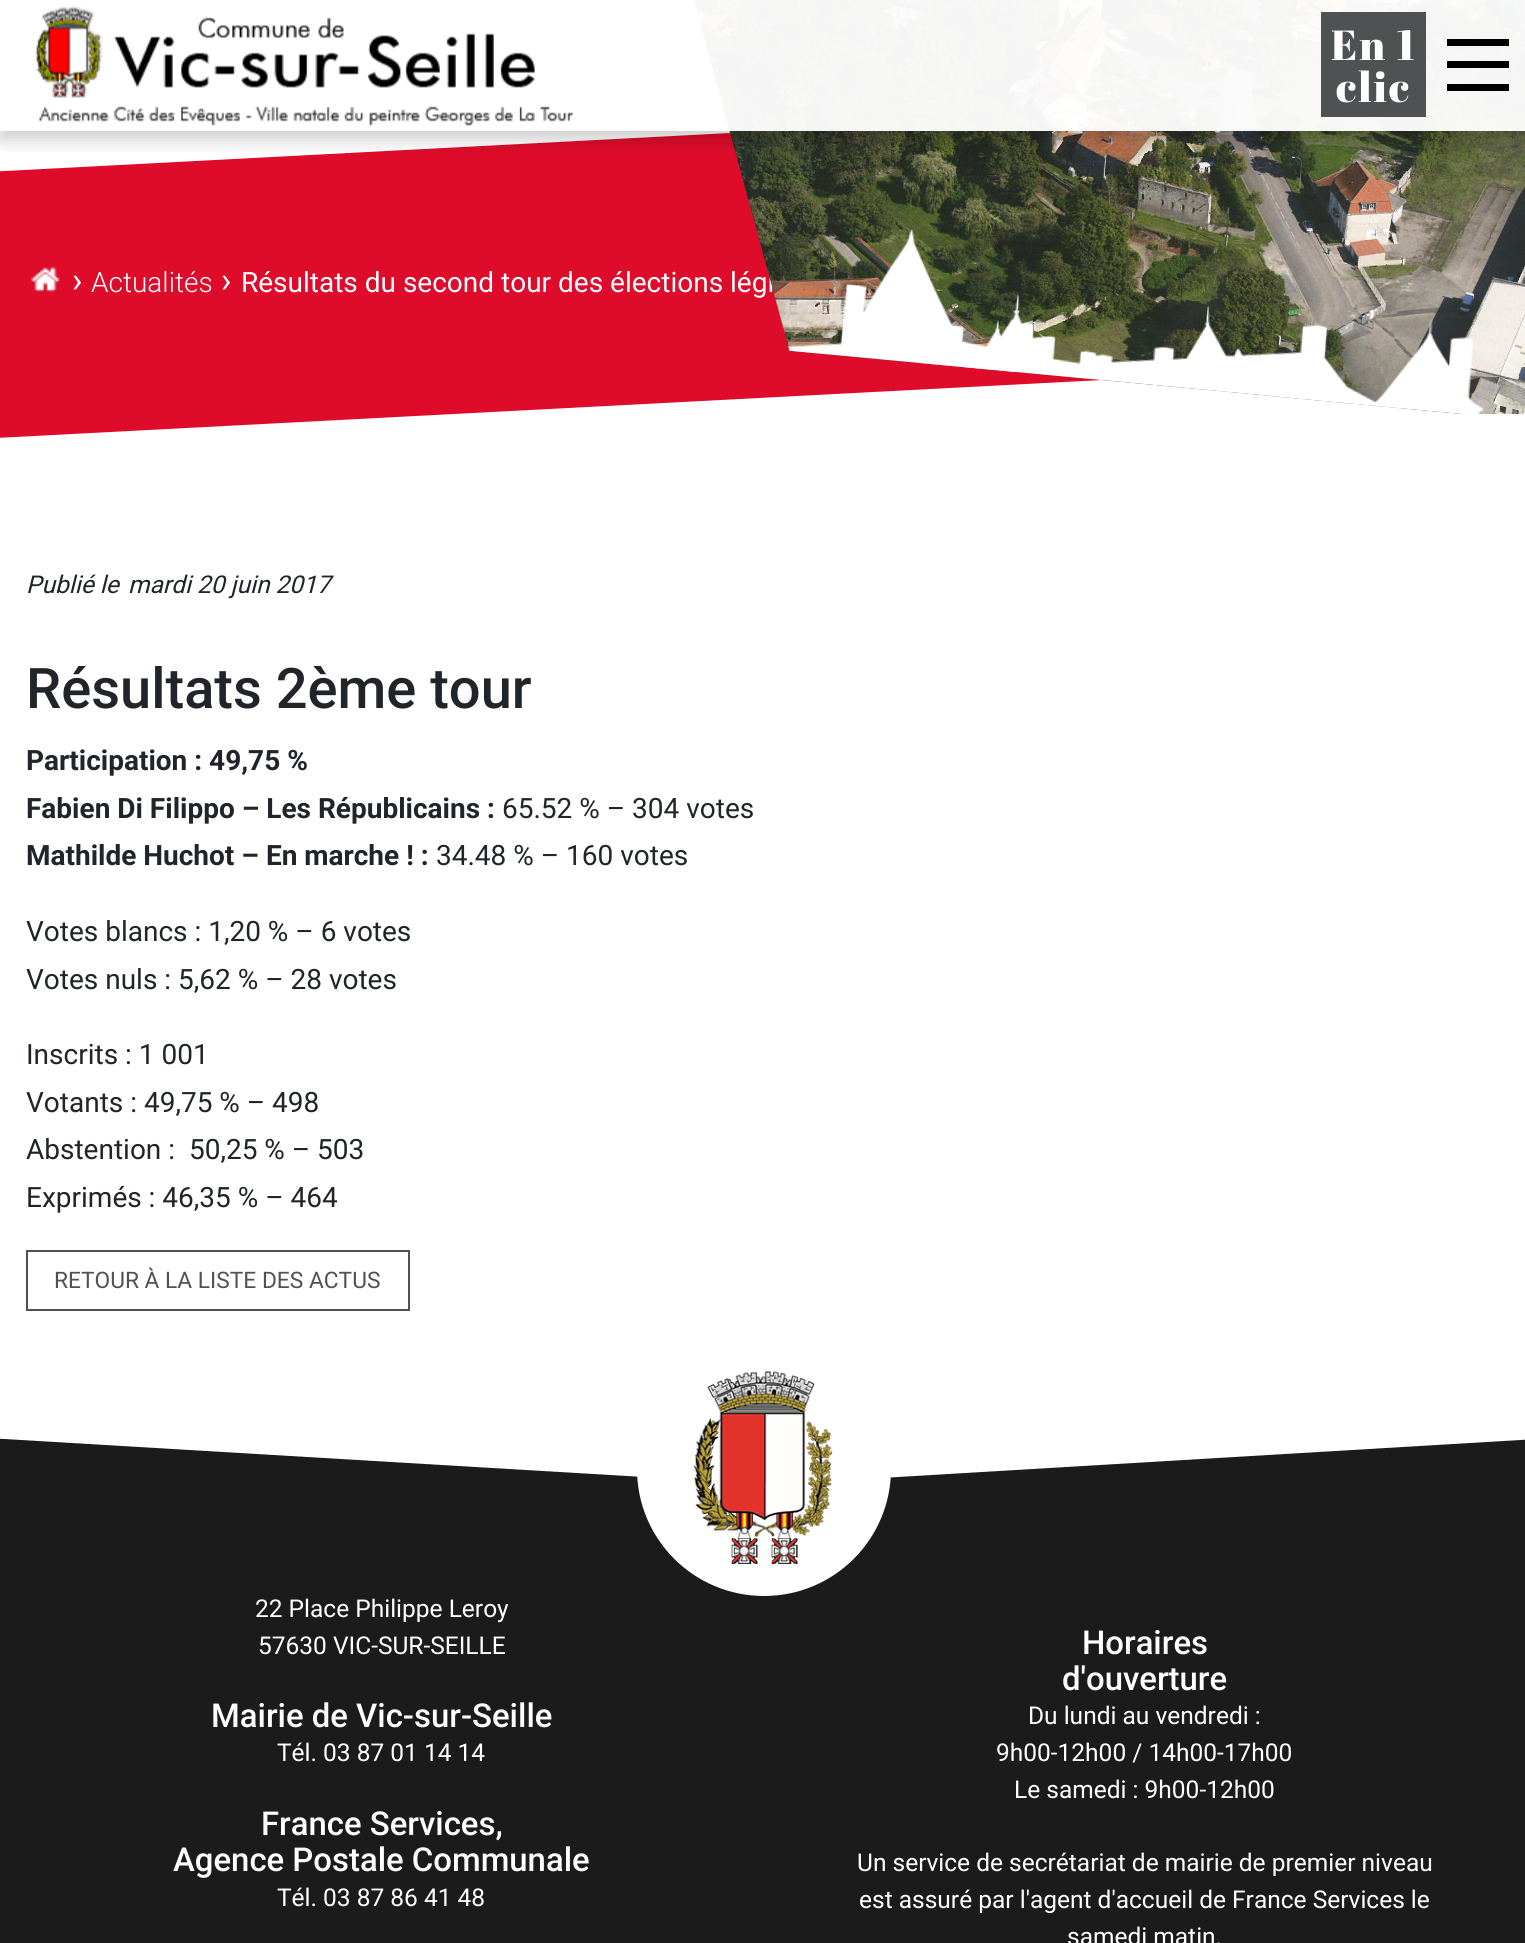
#include <cairo.h>
#include <math.h>
#include <stddef.h>

typedef struct { const char *family; double size; int italic, bold; unsigned color; } style_t;
static cairo_t *ctx;

static void ink(unsigned color) {
    cairo_set_source_rgb(ctx, (color >> 16) / 255.0, (color >> 8 & 255) / 255.0, (color & 255) / 255.0);
}

static void write(double x, double y, const char *s, const style_t *st) {
    cairo_select_font_face(ctx, st->family, st->italic ? CAIRO_FONT_SLANT_ITALIC : CAIRO_FONT_SLANT_NORMAL,
        st->bold ? CAIRO_FONT_WEIGHT_BOLD : CAIRO_FONT_WEIGHT_NORMAL);
    cairo_set_font_size(ctx, st->size);
    ink(st->color);
    cairo_move_to(ctx, x, y);
    cairo_show_text(ctx, s);
}

static void write_spaced(double x, double y, const char *s, double letter, double word) {
    cairo_move_to(ctx, x, y);
    while (*s) {
        char ch[5] = {0};
        int n = 0;
        do ch[n++] = *s++; while ((*s & 0xC0) == 0x80);
        cairo_show_text(ctx, ch);
        cairo_rel_move_to(ctx, letter + word * (*ch == ' '), 0);
    }
}

static void block(double x, double y, double w, double h, unsigned color) {
    ink(color);
    cairo_rectangle(ctx, x, y, w, h);
    cairo_fill(ctx);
}

static void round_path(double x, double y, double w, double h, double r) {
    cairo_new_sub_path(ctx);
    cairo_arc(ctx, x + w - r, y + h - r, r, 0, M_PI / 2);
    cairo_arc(ctx, x + r, y + h - r, r, M_PI / 2, M_PI);
    cairo_arc(ctx, x + r, y + r, r, M_PI, 1.5 * M_PI);
    cairo_arc(ctx, x + w - r, y + r, r, 1.5 * M_PI, 2 * M_PI);
    cairo_close_path(ctx);
}

static void blur_box(double x, double y, double w, double h, double r, double blur, double alpha) {
    cairo_push_group_with_content(ctx, CAIRO_CONTENT_ALPHA);
    cairo_set_operator(ctx, CAIRO_OPERATOR_SOURCE);
    for (int i = 15; i >= -15 && fmin(w, h) + blur * i / 3 > 0; i -= 2) {
        double e = blur * i / 6;
        cairo_set_source_rgba(ctx, 0, 0, 0, alpha * erfc((i - 1) / 8.5) / 2);
        round_path(x - e, y - e, w + 2 * e, h + 2 * e, fmax(0, fmin(r + e + blur * .6, fmin(w, h) / 2 + e)));
        cairo_fill(ctx);
    }
    cairo_pattern_t *soft = cairo_pop_group(ctx);
    cairo_mask(ctx, soft);
    cairo_pattern_destroy(soft);
}

static void paste(const char *path, double x, double y, double w, double h) {
    cairo_surface_t *image = cairo_image_surface_create_from_png(path);
    cairo_save(ctx);
    cairo_set_source_surface(ctx, image, x, y);
    cairo_rectangle(ctx, x, y, w, h);
    cairo_fill(ctx);
    cairo_restore(ctx);
    cairo_surface_destroy(image);
}

static const style_t s1 = {"Roboto", 28, 0, 0, 0xffffff};
static const style_t s2 = {"Roboto", 35, 0, 0, 0xffffff};
static const style_t s3 = {"Roboto Light", 28, 0, 0, 0xffffff};
static const style_t s4 = {"Roboto", 24.5, 1, 0, 0x212529};
static const style_t s5 = {"Roboto Medium", 56, 0, 0, 0x212529};
static const style_t s6 = {"Roboto", 28, 0, 1, 0x212529};
static const style_t s7 = {"Roboto", 28, 0, 0, 0x212529};
static const style_t s8 = {"Roboto", 22.75, 0, 0, 0x4e5253};
static const style_t s9 = {"Roboto", 24.5, 0, 0, 0xffffff};
static const style_t s10 = {"Roboto Medium", 32.9, 0, 0, 0xffffff};

int main(void) {
    cairo_surface_t *surface = cairo_image_surface_create(CAIRO_FORMAT_RGB24, 1525, 1943);
    ctx = cairo_create(surface);
    cairo_font_options_t *options = cairo_font_options_create();
    cairo_font_options_set_hint_metrics(options, CAIRO_HINT_METRICS_OFF);
    cairo_font_options_set_hint_style(options, CAIRO_HINT_STYLE_NONE);
    cairo_set_font_options(ctx, options);
    cairo_set_miter_limit(ctx, 4);
    ink(0xffffff);
    cairo_paint(ctx);
    ink(0xde0c2a);
    cairo_new_path(ctx);
    cairo_move_to(ctx, -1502, 250);
    cairo_line_to(ctx, 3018, 13);
    cairo_line_to(ctx, 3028, 209);
    cairo_line_to(ctx, -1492, 446);
    cairo_close_path(ctx);
    cairo_fill(ctx);
    cairo_new_path(ctx);
    cairo_move_to(ctx, -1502, 319);
    cairo_line_to(ctx, 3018, 83);
    cairo_line_to(ctx, 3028, 279);
    cairo_line_to(ctx, -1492, 516);
    cairo_close_path(ctx);
    cairo_fill(ctx);
    write(241, 292, "Résultats du second tour des élections légi", &s1);
    paste("pic3.png", 693, 0, 832, 415);
    cairo_save(ctx);
    cairo_rectangle(ctx, 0, 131, 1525, 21);
    cairo_clip(ctx);
    ink(0x000000);
    blur_box(0, 9, 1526, 131, 0, 9, 0.2);
    cairo_restore(ctx);
    cairo_set_source_rgba(ctx, 1, 1, 1, 0.95);
    cairo_rectangle(ctx, 693, 0, 832, 131);
    cairo_fill(ctx);
    paste("pic1.png", 35, 6, 539, 120);
    block(1321, 12, 105, 105, 0x4e5253);
    cairo_select_font_face(ctx, "Abril Fatface", CAIRO_FONT_SLANT_NORMAL, CAIRO_FONT_WEIGHT_NORMAL);
    cairo_set_font_size(ctx, 42);
    ink(0xffffff);
    write_spaced(1331, 60, "En 1", 2, 0);
    write_spaced(1336, 102, "clic", 2, 0);
    block(1447, 39, 62, 7, 0x000000);
    block(1447, 61, 62, 7, 0x000000);
    block(1447, 84, 62, 7, 0x000000);
    paste("pic2.png", 31, 266, 29, 26);
    write(72, 292, "›", &s2);
    write(91, 292, "Actualités", &s3);
    write(221, 292, "›", &s2);
    paste("pic4.png", 788, 229, 696, 185);
    write(26, 593, "Publié le", &s4);
    write(128, 593, "mardi 20 juin 2017", &s4);
    write(26, 708, "Résultats 2ème tour", &s5);
    write(26, 770, "Participation : 49,75 %", &s6);
    write(26, 818, "Fabien Di Filippo – Les Républicains :", &s6);
    write(502, 818, "65.52 % – 304 votes", &s7);
    write(26, 865, "Mathilde Huchot – En marche ! :", &s6);
    write(436, 865, "34.48 % – 160 votes", &s7);
    write(26, 941, "Votes blancs : 1,20 % – 6 votes", &s7);
    write(26, 989, "Votes nuls : 5,62 % – 28 votes", &s7);
    write(26, 1064, "Inscrits : 1 001", &s7);
    write(26, 1112, "Votants : 49,75 % – 498", &s7);
    write(26, 1159, "Abstention :  50,25 % – 503", &s7);
    write(26, 1207, "Exprimés : 46,35 % – 464", &s7);
    cairo_rectangle(ctx, 27, 1251, 382, 59);
    ink(0x4e5253);
    cairo_stroke(ctx);
    write(54, 1288, "RETOUR À LA LISTE DES ACTUS", &s8);
    ink(0x1b1b1b);
    cairo_new_path(ctx);
    cairo_move_to(ctx, -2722, 1277);
    cairo_line_to(ctx, 778, 1485);
    cairo_line_to(ctx, 778, 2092);
    cairo_line_to(ctx, -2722, 1884);
    cairo_close_path(ctx);
    cairo_fill(ctx);
    cairo_new_path(ctx);
    cairo_move_to(ctx, 763, 1485);
    cairo_line_to(ctx, 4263, 1277);
    cairo_line_to(ctx, 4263, 1884);
    cairo_line_to(ctx, 763, 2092);
    cairo_close_path(ctx);
    cairo_fill(ctx);
    ink(0xffffff);
    cairo_arc(ctx, 764, 1469, 127, 0, 2 * M_PI);
    cairo_fill(ctx);
    paste("pic5.png", 693, 1371, 140, 193);
    write(255, 1617, "22 Place Philippe Leroy", &s9);
    write(258, 1654, "57630 VIC-SUR-SEILLE", &s9);
    write(211, 1727, "Mairie de Vic-sur-Seille", &s10);
    write(277, 1761, "Tél. 03 87 01 14 14", &s9);
    write(261, 1835, "France Services,", &s10);
    write(173, 1871, "Agence Postale Communale", &s10);
    write(277, 1906, "Tél. 03 87 86 41 48", &s9);
    write(1082, 1654, "Horaires", &s10);
    write(1062, 1690, "d'ouverture", &s10);
    write(1028, 1724, "Du lundi au vendredi :", &s9);
    write(996, 1761, "9h00-12h00 / 14h00-17h00", &s9);
    write(1014, 1798, "Le samedi : 9h00-12h00", &s9);
    write(857, 1871, "Un service de secrétariat de mairie de premier niveau", &s9);
    write(859, 1908, "est assuré par l'agent d'accueil de France Services le", &s9);
    write(1067, 1945, "samedi matin.", &s9);
    cairo_surface_write_to_png(surface, "screenshot.png");
    cairo_font_options_destroy(options);
    cairo_destroy(ctx);
    cairo_surface_destroy(surface);
    return 0;
}
